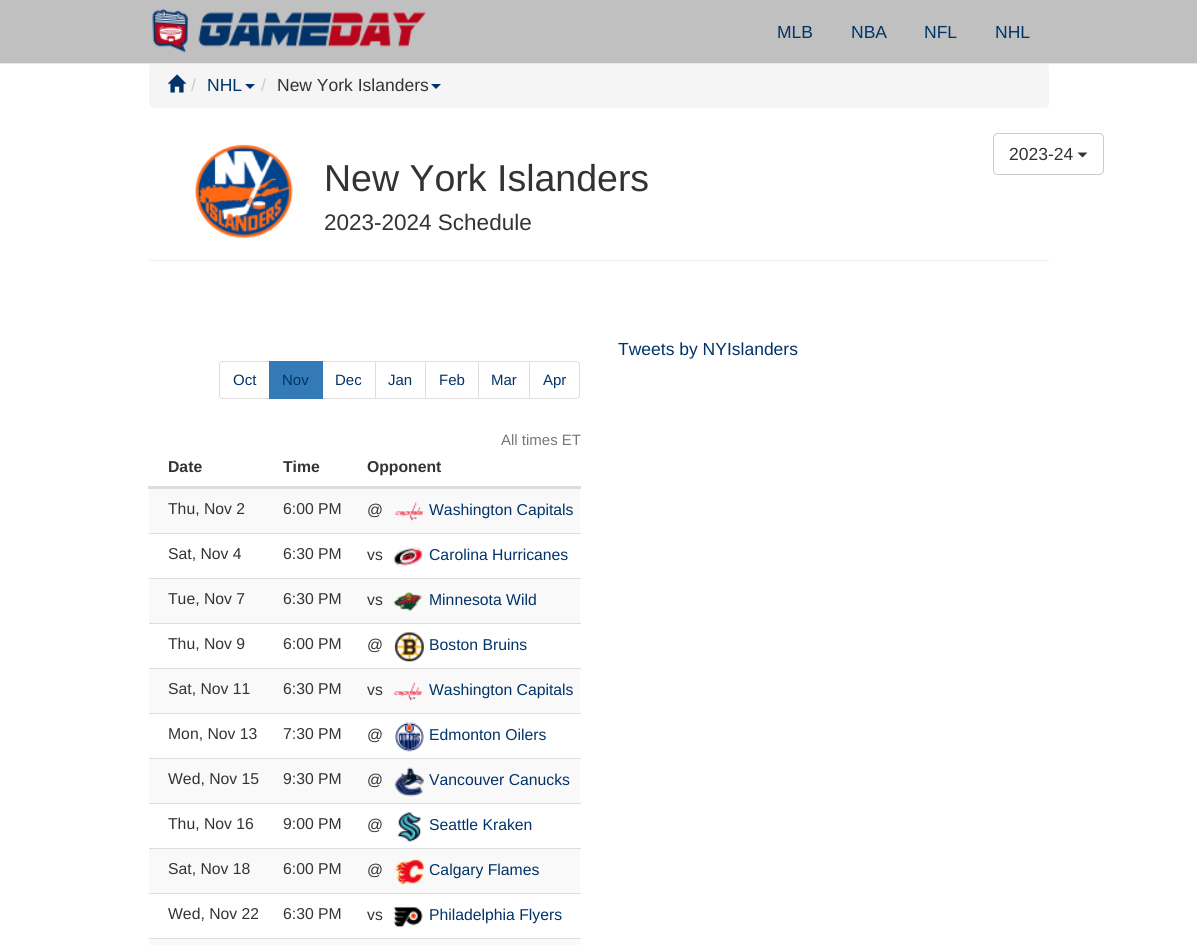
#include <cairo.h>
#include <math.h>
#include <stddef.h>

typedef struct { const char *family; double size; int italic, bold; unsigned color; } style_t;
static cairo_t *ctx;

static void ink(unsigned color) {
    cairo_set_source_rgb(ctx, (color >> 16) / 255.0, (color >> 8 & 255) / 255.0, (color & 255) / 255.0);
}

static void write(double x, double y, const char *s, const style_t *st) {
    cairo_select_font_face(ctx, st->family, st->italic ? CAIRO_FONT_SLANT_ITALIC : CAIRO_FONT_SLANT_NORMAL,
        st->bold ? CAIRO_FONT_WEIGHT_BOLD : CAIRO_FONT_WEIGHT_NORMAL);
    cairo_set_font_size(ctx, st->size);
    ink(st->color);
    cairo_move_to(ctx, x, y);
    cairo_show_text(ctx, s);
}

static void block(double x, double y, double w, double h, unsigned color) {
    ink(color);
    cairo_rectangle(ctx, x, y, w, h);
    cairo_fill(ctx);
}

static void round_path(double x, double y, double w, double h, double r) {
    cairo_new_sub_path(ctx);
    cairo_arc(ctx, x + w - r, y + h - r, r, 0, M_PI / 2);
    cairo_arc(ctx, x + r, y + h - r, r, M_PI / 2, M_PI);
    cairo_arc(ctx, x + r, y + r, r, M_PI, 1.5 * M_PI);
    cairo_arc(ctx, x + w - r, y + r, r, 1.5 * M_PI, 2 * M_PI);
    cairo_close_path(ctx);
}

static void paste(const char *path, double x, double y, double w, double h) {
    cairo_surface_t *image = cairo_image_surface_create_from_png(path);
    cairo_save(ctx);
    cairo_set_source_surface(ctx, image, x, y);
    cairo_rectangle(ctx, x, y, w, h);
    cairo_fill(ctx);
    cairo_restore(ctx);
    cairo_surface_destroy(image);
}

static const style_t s1 = {"Liberation Sans", 17.5, 0, 0, 0x013368};
static const style_t s2 = {"Liberation Sans", 17.5, 0, 0, 0xcccccc};
static const style_t s3 = {"Liberation Sans", 17.5, 0, 0, 0x333333};
static const style_t s4 = {"Liberation Sans", 37.5, 0, 0, 0x333333};
static const style_t s5 = {"Liberation Sans", 22.5, 0, 0, 0x333333};
static const style_t s6 = {"Liberation Sans", 15, 0, 0, 0x013368};
static const style_t s7 = {"Liberation Sans", 15, 0, 0, 0x777777};
static const style_t s8 = {"Liberation Sans", 15.75, 0, 1, 0x333333};
static const style_t s9 = {"Liberation Sans", 15.75, 0, 0, 0x333333};
static const style_t s10 = {"Liberation Sans", 15.75, 0, 0, 0x013368};

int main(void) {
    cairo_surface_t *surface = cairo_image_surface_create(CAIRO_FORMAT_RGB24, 1197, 945);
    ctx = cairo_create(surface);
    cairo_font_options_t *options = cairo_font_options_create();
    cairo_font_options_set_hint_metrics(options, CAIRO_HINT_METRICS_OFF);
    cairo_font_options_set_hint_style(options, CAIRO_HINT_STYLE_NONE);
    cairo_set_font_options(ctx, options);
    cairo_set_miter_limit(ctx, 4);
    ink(0xffffff);
    cairo_paint(ctx);
    block(0, 0, 1197, 63, 0xc0c0c0);
    ink(0xf5f5f5);
    round_path(149, 63, 900, 45, 5);
    cairo_fill(ctx);
    block(0, 63, 1197, 1, 0xe7e7e7);
    paste("pic1.png", 152, 8, 274, 45);
    write(777, 38, "MLB", &s1);
    write(851, 38, "NBA", &s1);
    write(924, 38, "NFL", &s1);
    write(995, 38, "NHL", &s1);
    paste("pic2.png", 167, 74, 20, 19);
    write(191, 91, "/", &s2);
    write(207, 91, "NHL", &s1);
    cairo_new_path(ctx);
    cairo_move_to(ctx, 245, 84);
    cairo_line_to(ctx, 255, 84);
    cairo_line_to(ctx, 250, 89);
    cairo_close_path(ctx);
    cairo_fill(ctx);
    write(261, 91, "/", &s2);
    write(277, 91, "New York Islanders", &s3);
    ink(0x013368);
    cairo_new_path(ctx);
    cairo_move_to(ctx, 431, 84);
    cairo_line_to(ctx, 441, 84);
    cairo_line_to(ctx, 436, 89);
    cairo_close_path(ctx);
    cairo_fill(ctx);
    block(149, 260, 900, 1, 0xeeeeee);
    round_path(993.5, 133.5, 110, 41, 4.5);
    ink(0xcccccc);
    cairo_set_line_width(ctx, 1);
    cairo_stroke(ctx);
    write(1009, 160, "2023-24", &s3);
    cairo_new_path(ctx);
    cairo_move_to(ctx, 1077.5, 152.5);
    cairo_line_to(ctx, 1087.5, 152.5);
    cairo_line_to(ctx, 1082.5, 157.5);
    cairo_close_path(ctx);
    cairo_fill(ctx);
    paste("pic3.png", 194, 144, 99, 95);
    write(324, 191, "New York Islanders", &s4);
    write(324, 230, "2023-2024 Schedule", &s5);
    write(618, 355, "Tweets by NYIslanders", &s1);
    cairo_new_path(ctx);
    cairo_move_to(ctx, 223, 361.5);
    cairo_line_to(ctx, 269.5, 361.5);
    cairo_line_to(ctx, 269.5, 398.5);
    cairo_line_to(ctx, 223, 398.5);
    cairo_curve_to(ctx, 221, 398.5, 219.5, 397, 219.5, 395);
    cairo_line_to(ctx, 219.5, 365);
    cairo_curve_to(ctx, 219.5, 363, 221, 361.5, 223, 361.5);
    cairo_close_path(ctx);
    ink(0xdddddd);
    cairo_stroke(ctx);
    write(233, 385, "Oct", &s6);
    cairo_rectangle(ctx, 321.5, 361.5, 54, 37);
    ink(0xdddddd);
    cairo_stroke(ctx);
    block(269, 361, 54, 38, 0x337ab7);
    write(282, 385, "Nov", &s6);
    write(335, 385, "Dec", &s6);
    cairo_rectangle(ctx, 375.5, 361.5, 50, 37);
    ink(0xdddddd);
    cairo_stroke(ctx);
    write(388, 385, "Jan", &s6);
    cairo_rectangle(ctx, 425.5, 361.5, 53, 37);
    ink(0xdddddd);
    cairo_stroke(ctx);
    write(439, 385, "Feb", &s6);
    cairo_rectangle(ctx, 478.5, 361.5, 51, 37);
    ink(0xdddddd);
    cairo_stroke(ctx);
    write(491, 385, "Mar", &s6);
    ink(0xffffff);
    cairo_new_path(ctx);
    cairo_move_to(ctx, 529.5, 361.5);
    cairo_line_to(ctx, 576, 361.5);
    cairo_curve_to(ctx, 578, 361.5, 579.5, 363, 579.5, 365);
    cairo_line_to(ctx, 579.5, 395);
    cairo_curve_to(ctx, 579.5, 397, 578, 398.5, 576, 398.5);
    cairo_line_to(ctx, 529.5, 398.5);
    cairo_close_path(ctx);
    cairo_fill_preserve(ctx);
    ink(0xdddddd);
    cairo_stroke(ctx);
    write(543, 385, "Apr", &s6);
    write(501, 445, "All times ET", &s7);
    write(168, 472, "Date", &s8);
    write(283, 472, "Time", &s8);
    block(148, 486, 433, 3, 0xdddddd);
    write(367, 472, "Opponent", &s8);
    block(149, 489, 431, 44, 0xf9f9f9);
    write(168, 514, "Thu, Nov 2", &s9);
    write(283, 514, "6:00 PM", &s9);
    write(367, 515, "@", &s9);
    paste("pic4.png", 394, 502, 30, 19);
    write(429, 515, "Washington Capitals", &s10);
    write(168, 559, "Sat, Nov 4", &s9);
    write(283, 559, "6:30 PM", &s9);
    block(149, 533, 432, 1, 0xdddddd);
    write(367, 560, "vs", &s9);
    paste("pic5.png", 393, 547, 30, 20);
    write(429, 560, "Carolina Hurricanes", &s10);
    block(149, 579, 431, 44, 0xf9f9f9);
    write(168, 604, "Tue, Nov 7", &s9);
    write(283, 604, "6:30 PM", &s9);
    block(149, 578, 432, 1, 0xdddddd);
    write(367, 605, "vs", &s9);
    paste("pic6.png", 393, 592, 30, 20);
    write(429, 605, "Minnesota Wild", &s10);
    write(168, 649, "Thu, Nov 9", &s9);
    write(283, 649, "6:00 PM", &s9);
    block(149, 623, 432, 1, 0xdddddd);
    write(367, 650, "@", &s9);
    paste("pic7.png", 394, 632, 30, 30);
    write(429, 650, "Boston Bruins", &s10);
    block(149, 669, 431, 44, 0xf9f9f9);
    write(168, 694, "Sat, Nov 11", &s9);
    write(283, 694, "6:30 PM", &s9);
    block(149, 668, 432, 1, 0xdddddd);
    write(367, 695, "vs", &s9);
    paste("pic8.png", 393, 682, 30, 19);
    write(429, 695, "Washington Capitals", &s10);
    write(168, 739, "Mon, Nov 13", &s9);
    write(283, 739, "7:30 PM", &s9);
    block(149, 713, 432, 1, 0xdddddd);
    write(367, 740, "@", &s9);
    paste("pic9.png", 394, 722, 30, 30);
    write(429, 740, "Edmonton Oilers", &s10);
    block(149, 759, 431, 44, 0xf9f9f9);
    write(168, 784, "Wed, Nov 15", &s9);
    write(283, 784, "9:30 PM", &s9);
    block(149, 758, 432, 1, 0xdddddd);
    write(367, 785, "@", &s9);
    paste("pic10.png", 394, 767, 30, 30);
    write(429, 785, "Vancouver Canucks", &s10);
    write(168, 829, "Thu, Nov 16", &s9);
    write(283, 829, "9:00 PM", &s9);
    block(149, 803, 432, 1, 0xdddddd);
    write(367, 830, "@", &s9);
    paste("pic11.png", 397, 812, 25, 30);
    write(429, 830, "Seattle Kraken", &s10);
    block(149, 849, 431, 44, 0xf9f9f9);
    write(168, 874, "Sat, Nov 18", &s9);
    write(283, 874, "6:00 PM", &s9);
    block(149, 848, 432, 1, 0xdddddd);
    write(367, 875, "@", &s9);
    paste("pic12.png", 394, 859, 30, 26);
    write(429, 875, "Calgary Flames", &s10);
    write(168, 919, "Wed, Nov 22", &s9);
    write(283, 919, "6:30 PM", &s9);
    block(149, 893, 432, 1, 0xdddddd);
    write(367, 920, "vs", &s9);
    paste("pic13.png", 393, 906, 30, 22);
    write(429, 920, "Philadelphia Flyers", &s10);
    block(149, 939, 431, 6, 0xf9f9f9);
    block(149, 938, 432, 1, 0xdddddd);
    cairo_surface_write_to_png(surface, "screenshot.png");
    cairo_font_options_destroy(options);
    cairo_destroy(ctx);
    cairo_surface_destroy(surface);
    return 0;
}
